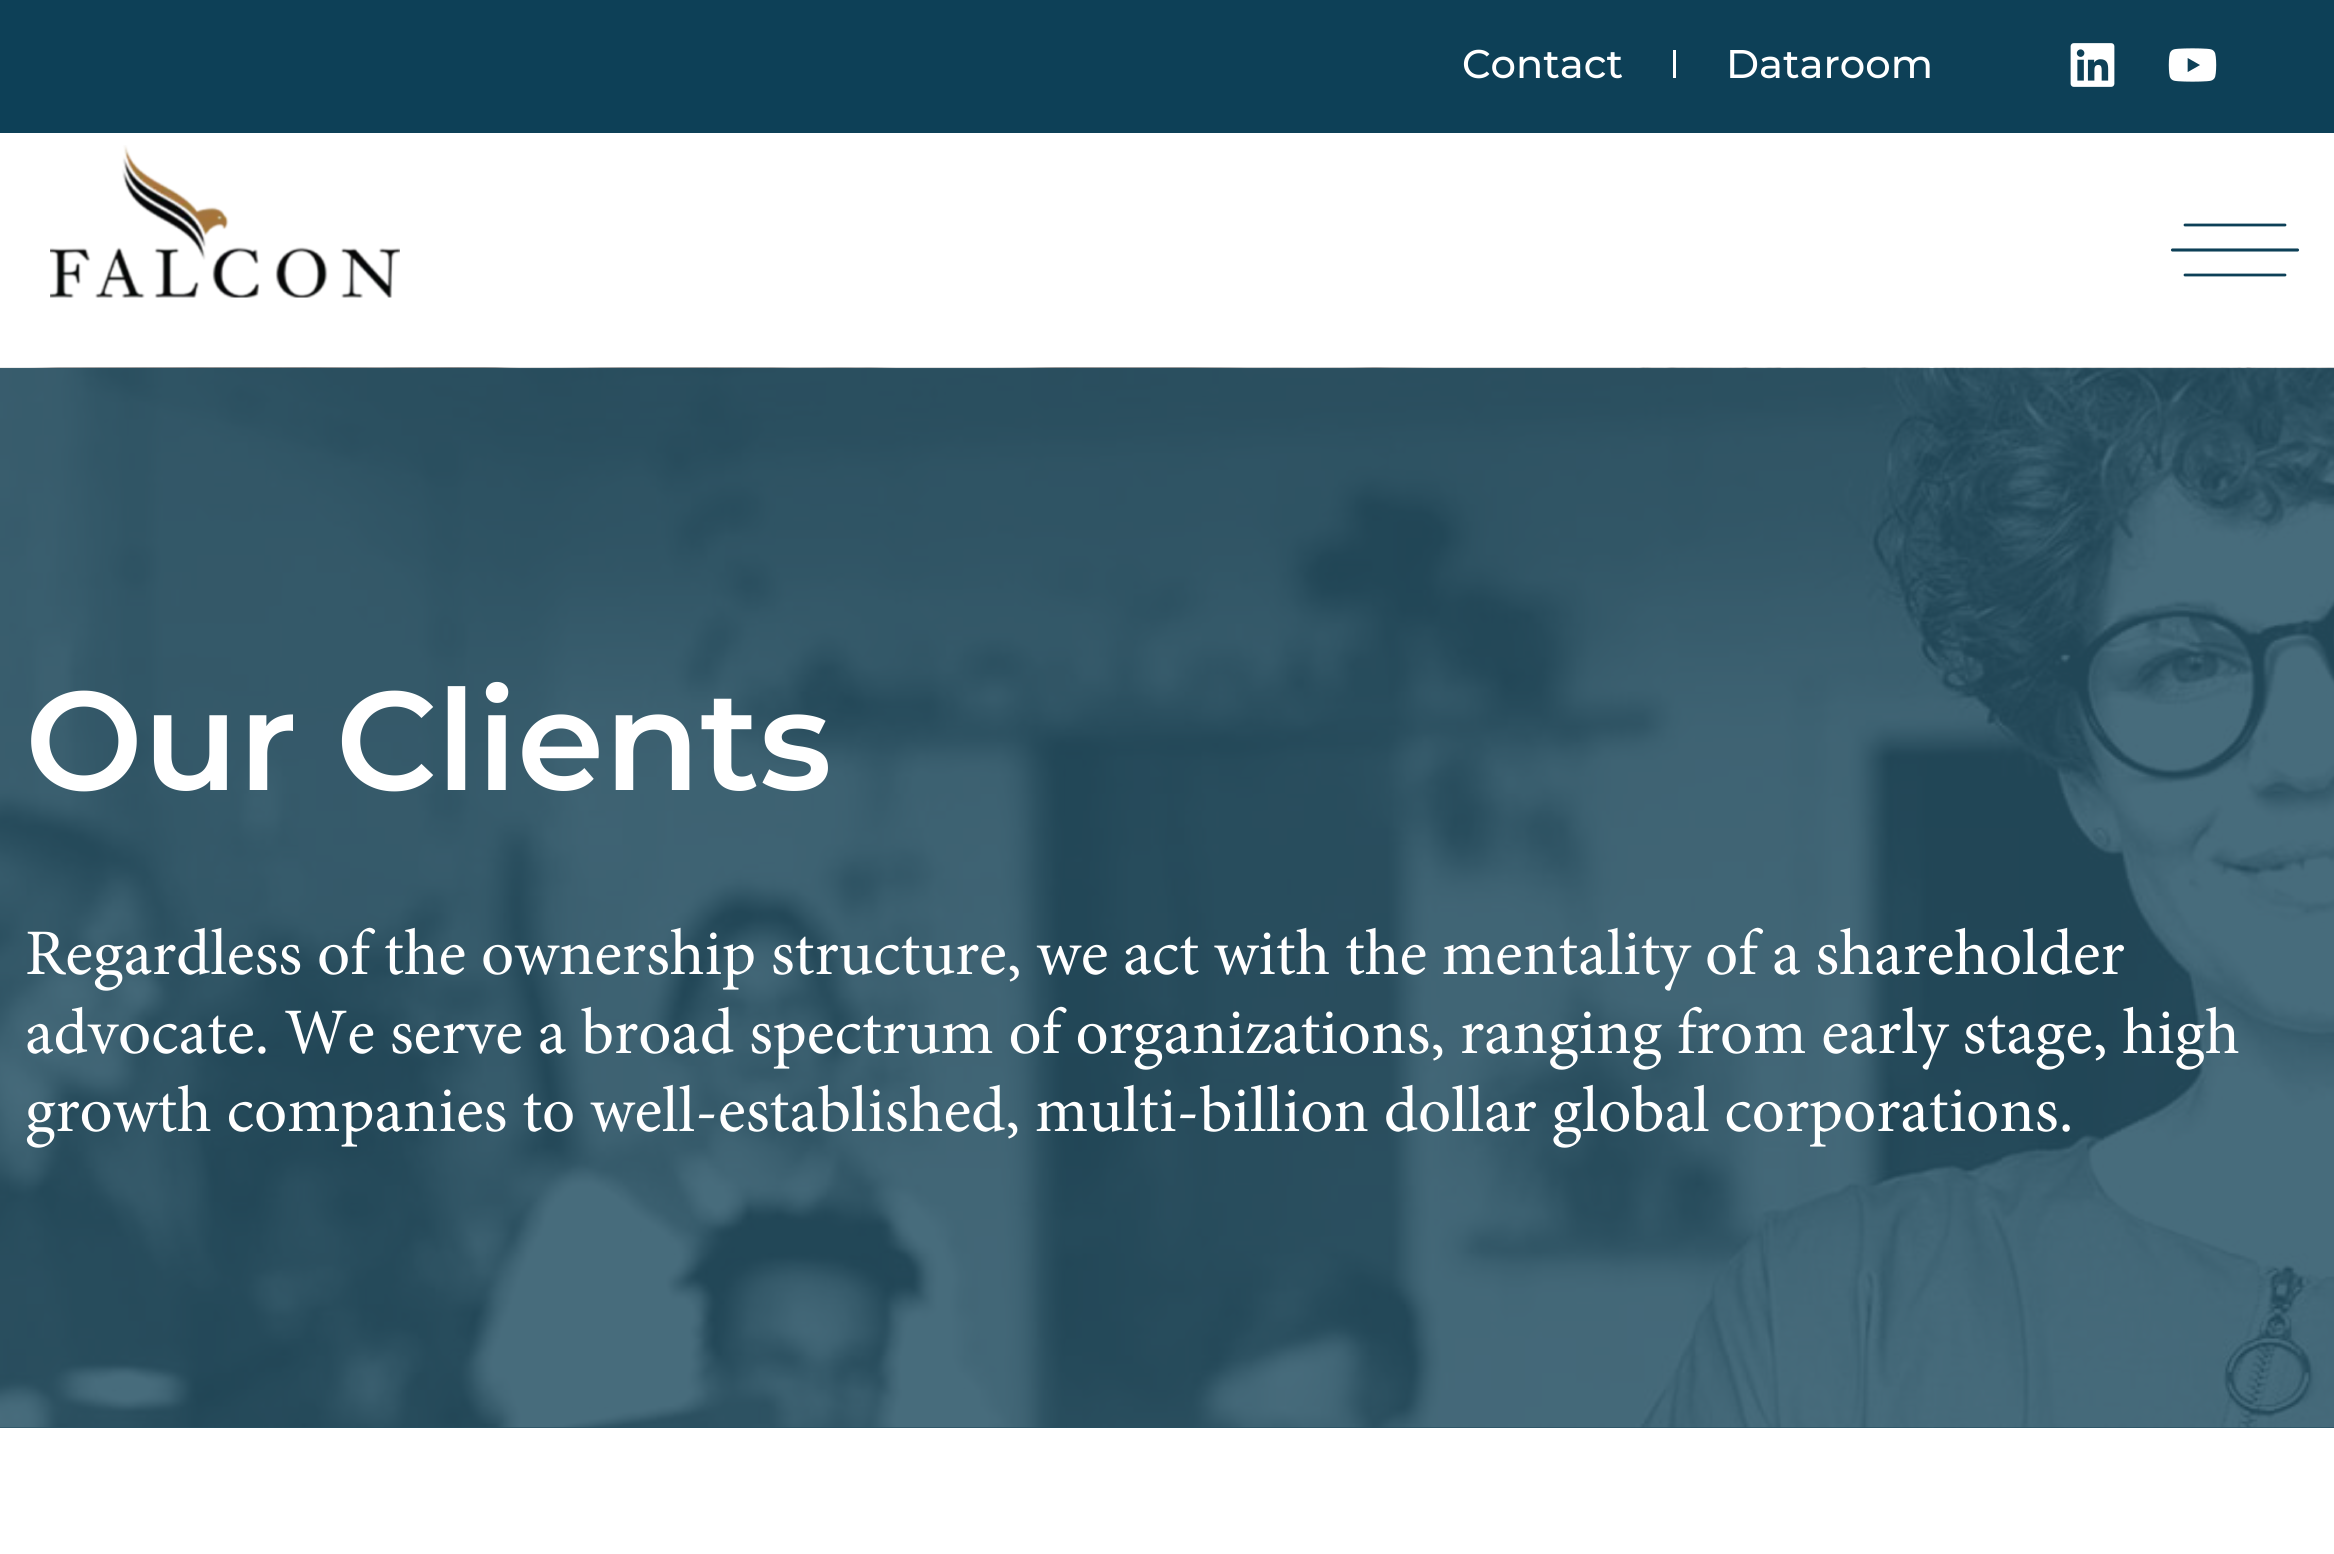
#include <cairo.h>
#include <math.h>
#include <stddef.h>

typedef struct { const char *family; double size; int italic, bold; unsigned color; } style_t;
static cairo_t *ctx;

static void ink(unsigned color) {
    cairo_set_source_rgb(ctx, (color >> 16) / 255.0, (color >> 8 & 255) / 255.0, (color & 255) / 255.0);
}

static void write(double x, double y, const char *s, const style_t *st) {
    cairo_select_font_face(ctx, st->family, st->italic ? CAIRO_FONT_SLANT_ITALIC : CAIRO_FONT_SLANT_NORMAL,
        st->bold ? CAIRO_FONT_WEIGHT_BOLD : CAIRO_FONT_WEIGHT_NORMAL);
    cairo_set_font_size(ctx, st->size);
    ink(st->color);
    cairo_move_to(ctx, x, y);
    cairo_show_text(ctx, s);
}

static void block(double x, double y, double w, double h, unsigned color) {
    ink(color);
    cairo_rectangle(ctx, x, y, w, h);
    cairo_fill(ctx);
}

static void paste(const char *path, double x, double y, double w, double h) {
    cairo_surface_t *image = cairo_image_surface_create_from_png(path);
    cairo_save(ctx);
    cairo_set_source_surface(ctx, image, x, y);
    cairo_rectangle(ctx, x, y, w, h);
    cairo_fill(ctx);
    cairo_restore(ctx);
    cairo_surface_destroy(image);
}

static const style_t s1 = {"Montserrat Medium", 40, 0, 0, 0xffffff};
static const style_t s2 = {"Montserrat SemiBold", 140, 0, 0, 0xffffff};
static const style_t s3 = {"Minion", 65, 0, 0, 0xffffff};

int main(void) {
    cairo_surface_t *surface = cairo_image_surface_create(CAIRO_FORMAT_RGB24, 2334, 1554);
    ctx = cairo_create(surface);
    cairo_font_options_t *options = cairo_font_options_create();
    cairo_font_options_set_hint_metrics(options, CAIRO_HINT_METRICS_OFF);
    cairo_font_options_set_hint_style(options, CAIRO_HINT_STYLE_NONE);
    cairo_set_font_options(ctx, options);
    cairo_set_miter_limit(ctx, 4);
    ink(0xffffff);
    cairo_paint(ctx);
    block(0, 0, 2334, 133, 0x0d4057);
    write(1462, 78, "Contact", &s1);
    block(1673, 50, 3, 28, 0xffffff);
    write(1726, 78, "Dataroom", &s1);
    paste("pic1.png", 2070, 43, 45, 44);
    paste("pic2.png", 2168, 48, 49, 34);
    paste("pic3.png", 50, 145, 350, 153);
    cairo_new_path(ctx);
    cairo_move_to(ctx, 2185, 225);
    cairo_line_to(ctx, 2285, 225);
    ink(0x0d4057);
    cairo_set_line_width(ctx, 2.8);
    cairo_set_line_cap(ctx, CAIRO_LINE_CAP_ROUND);
    cairo_stroke(ctx);
    cairo_new_path(ctx);
    cairo_move_to(ctx, 2172.5, 250);
    cairo_line_to(ctx, 2297.5, 250);
    cairo_set_line_width(ctx, 3.1);
    cairo_stroke(ctx);
    cairo_new_path(ctx);
    cairo_move_to(ctx, 2185, 275);
    cairo_line_to(ctx, 2285, 275);
    cairo_set_line_width(ctx, 2.8);
    cairo_stroke(ctx);
    block(0, 1427, 2334, 1, 0x234f63);
    paste("pic4.png", 0, 367, 2334, 1061);
    write(25, 790, "Our Clients", &s2);
    write(25, 974, "Regardless of the ownership structure, we act with the mentality of a shareholder", &s3);
    write(25, 1053, "advocate. We serve a broad spectrum of organizations, ranging from early stage, high", &s3);
    write(25, 1131, "growth companies to well-established, multi-billion dollar global corporations.", &s3);
    cairo_surface_write_to_png(surface, "screenshot.png");
    cairo_font_options_destroy(options);
    cairo_destroy(ctx);
    cairo_surface_destroy(surface);
    return 0;
}
